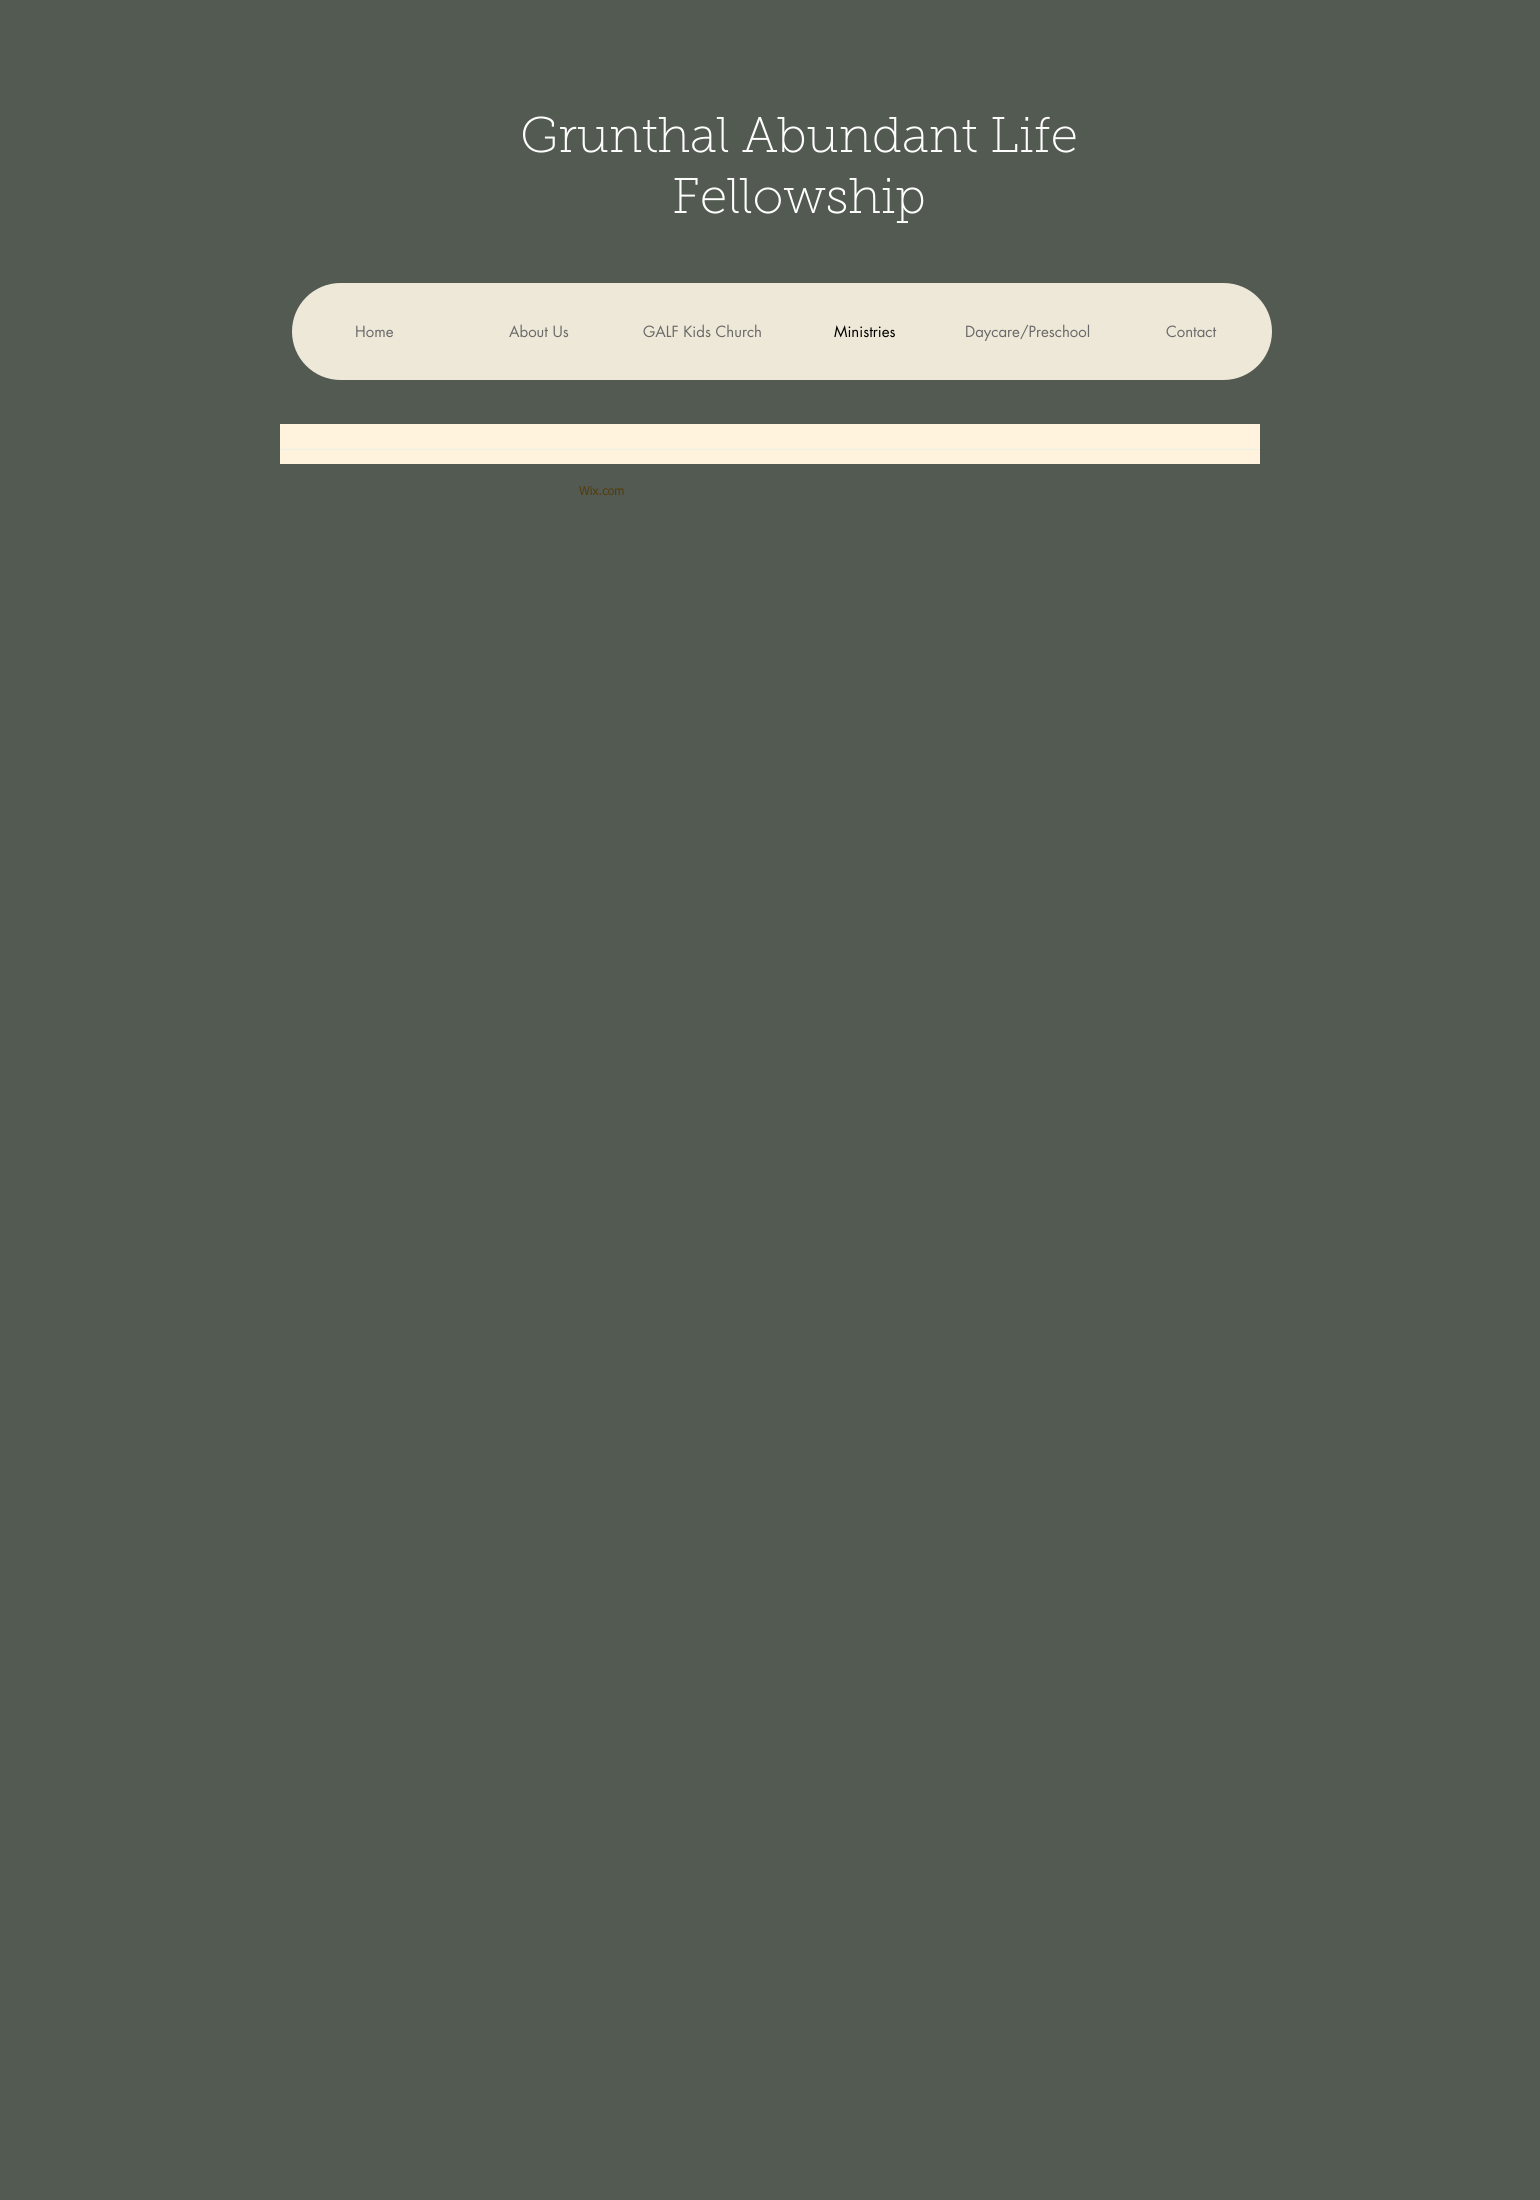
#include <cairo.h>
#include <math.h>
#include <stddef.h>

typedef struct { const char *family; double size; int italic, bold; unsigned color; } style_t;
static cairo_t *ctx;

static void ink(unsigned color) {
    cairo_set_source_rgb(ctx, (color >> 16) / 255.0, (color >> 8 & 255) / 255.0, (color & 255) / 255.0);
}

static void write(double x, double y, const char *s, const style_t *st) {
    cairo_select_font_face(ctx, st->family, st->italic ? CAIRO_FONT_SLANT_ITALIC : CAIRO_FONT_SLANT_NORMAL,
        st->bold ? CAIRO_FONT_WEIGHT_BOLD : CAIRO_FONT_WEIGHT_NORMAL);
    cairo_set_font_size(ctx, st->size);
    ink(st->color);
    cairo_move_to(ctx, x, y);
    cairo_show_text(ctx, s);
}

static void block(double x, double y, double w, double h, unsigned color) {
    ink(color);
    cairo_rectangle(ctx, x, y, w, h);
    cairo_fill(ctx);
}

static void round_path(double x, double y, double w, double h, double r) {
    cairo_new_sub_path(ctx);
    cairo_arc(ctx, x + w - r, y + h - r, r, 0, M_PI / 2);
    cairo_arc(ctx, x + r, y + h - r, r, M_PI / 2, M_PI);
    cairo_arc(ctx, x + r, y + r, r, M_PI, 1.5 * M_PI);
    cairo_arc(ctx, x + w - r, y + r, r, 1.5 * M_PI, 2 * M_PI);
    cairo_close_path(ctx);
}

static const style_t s1 = {"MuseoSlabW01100 Thin", 50, 0, 0, 0xffffff};
static const style_t s2 = {"futura", 15, 0, 0, 0x696969};
static const style_t s3 = {"futura", 15, 0, 0, 0x000000};
static const style_t s4 = {"tahoma", 12, 0, 0, 0x543c0a};

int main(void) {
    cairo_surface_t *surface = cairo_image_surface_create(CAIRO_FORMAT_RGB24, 1540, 2200);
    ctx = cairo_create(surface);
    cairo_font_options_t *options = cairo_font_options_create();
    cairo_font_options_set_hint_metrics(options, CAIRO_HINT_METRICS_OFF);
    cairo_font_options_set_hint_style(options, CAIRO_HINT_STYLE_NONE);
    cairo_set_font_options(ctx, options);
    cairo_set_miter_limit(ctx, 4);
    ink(0x525a51);
    cairo_paint(ctx);
    write(520, 152, "Grunthal Abundant Life", &s1);
    write(672, 213, "Fellowship", &s1);
    ink(0xeee8d8);
    round_path(292, 283, 980, 97, 48.5);
    cairo_fill(ctx);
    write(355, 337, "Home", &s2);
    write(509, 337, "About Us", &s2);
    write(643, 337, "GALF Kids Church", &s2);
    write(834, 337, "Ministries", &s3);
    write(965, 337, "Daycare/Preschool", &s2);
    write(1166, 337, "Contact", &s2);
    block(280, 424, 980, 40, 0xfff3de);
    block(280, 449, 980, 1, 0xeaf1e9);
    write(579, 495, "Wix.com", &s4);
    cairo_surface_write_to_png(surface, "screenshot.png");
    cairo_font_options_destroy(options);
    cairo_destroy(ctx);
    cairo_surface_destroy(surface);
    return 0;
}
